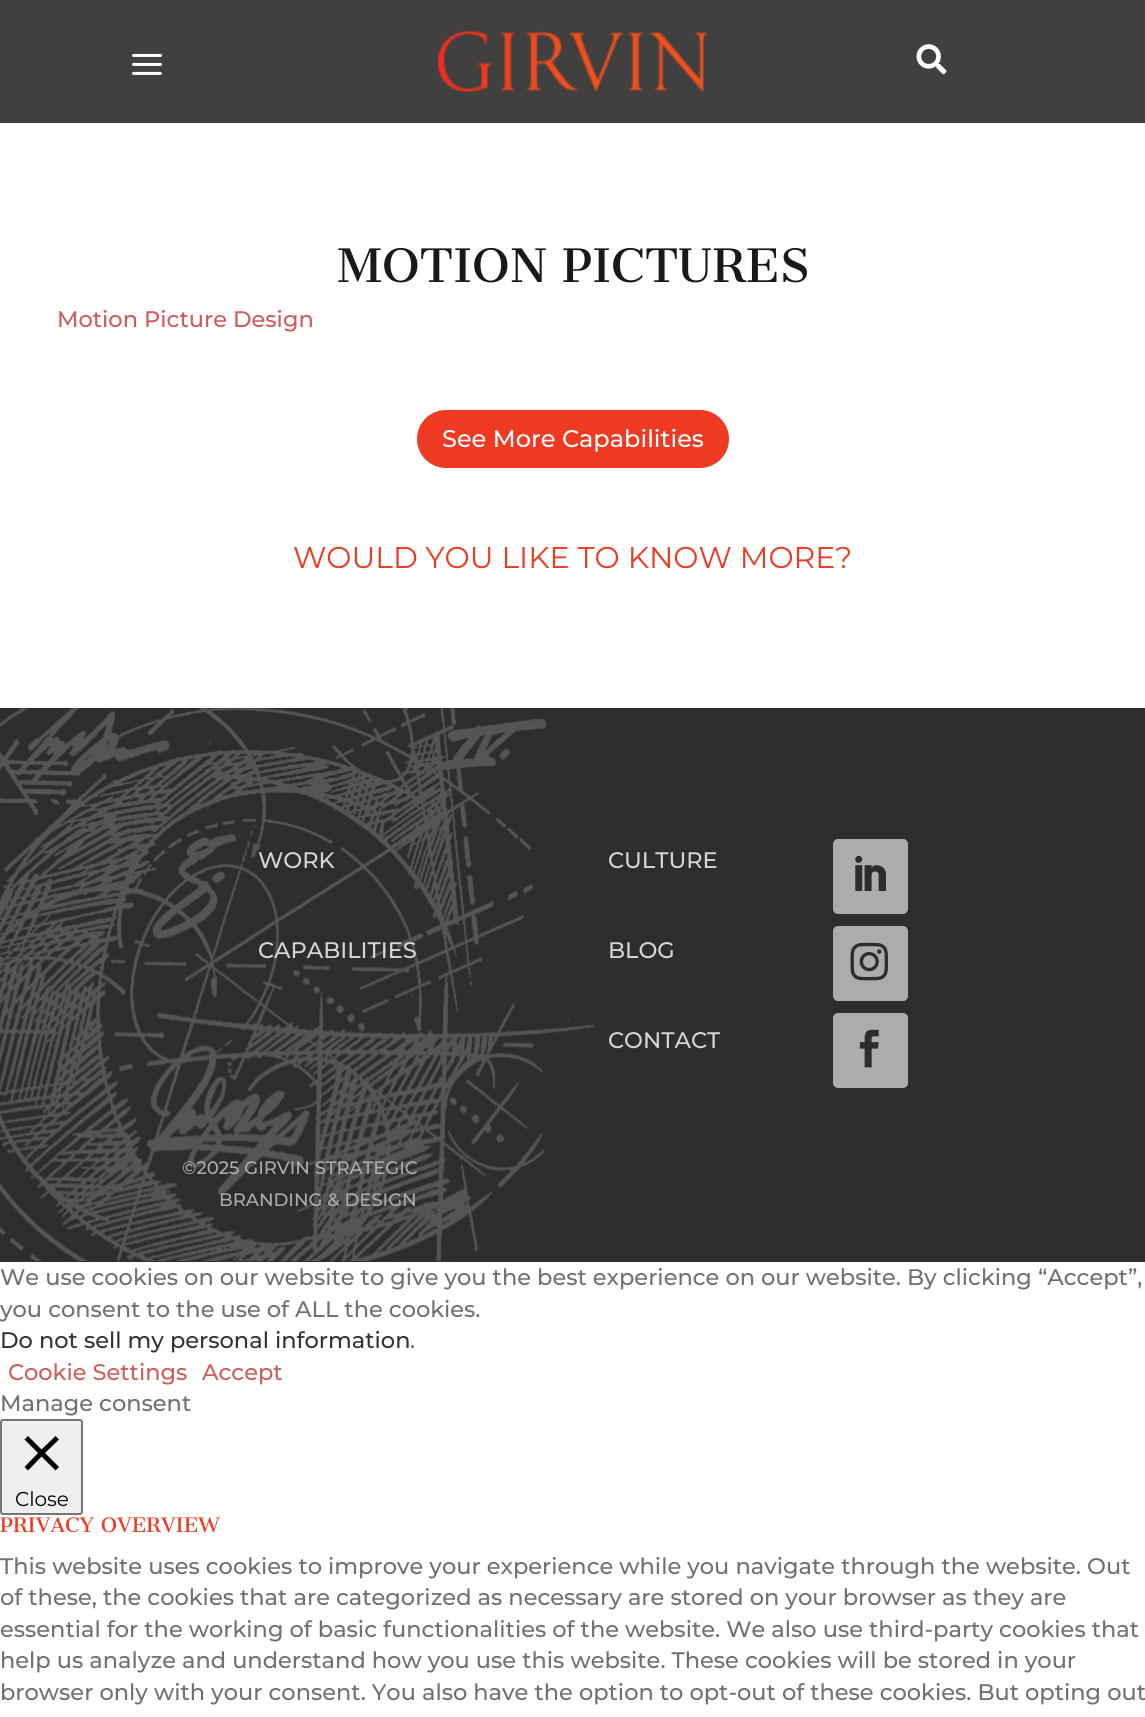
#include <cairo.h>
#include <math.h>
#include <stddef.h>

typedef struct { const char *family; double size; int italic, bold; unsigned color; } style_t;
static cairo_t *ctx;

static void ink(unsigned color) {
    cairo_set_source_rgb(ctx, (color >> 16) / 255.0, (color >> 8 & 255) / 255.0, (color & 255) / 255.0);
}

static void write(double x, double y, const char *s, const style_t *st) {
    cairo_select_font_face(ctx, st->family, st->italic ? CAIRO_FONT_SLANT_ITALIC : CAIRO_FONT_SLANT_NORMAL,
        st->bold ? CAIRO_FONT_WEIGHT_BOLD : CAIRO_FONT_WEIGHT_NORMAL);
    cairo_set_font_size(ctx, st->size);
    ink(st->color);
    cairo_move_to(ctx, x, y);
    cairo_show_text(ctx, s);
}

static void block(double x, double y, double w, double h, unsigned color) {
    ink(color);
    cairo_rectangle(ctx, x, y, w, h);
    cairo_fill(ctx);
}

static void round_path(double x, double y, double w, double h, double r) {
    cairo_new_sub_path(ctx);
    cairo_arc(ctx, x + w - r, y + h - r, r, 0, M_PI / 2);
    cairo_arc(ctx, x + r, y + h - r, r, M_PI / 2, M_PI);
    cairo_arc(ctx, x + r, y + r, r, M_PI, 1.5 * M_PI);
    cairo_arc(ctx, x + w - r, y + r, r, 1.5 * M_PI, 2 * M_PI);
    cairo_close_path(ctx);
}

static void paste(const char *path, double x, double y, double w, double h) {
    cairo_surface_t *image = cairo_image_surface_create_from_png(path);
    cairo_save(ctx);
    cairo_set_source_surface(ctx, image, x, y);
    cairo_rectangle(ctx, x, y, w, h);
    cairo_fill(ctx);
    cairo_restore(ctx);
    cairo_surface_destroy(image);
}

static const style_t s1 = {"Cantata One", 45, 0, 0, 0x191919};
static const style_t s2 = {"Montserrat Medium", 22.5, 0, 0, 0xcd5c5c};
static const style_t s3 = {"Montserrat Medium", 24, 0, 0, 0xffffff};
static const style_t s4 = {"Montserrat", 30, 0, 0, 0xee3a22};
static const style_t s5 = {"Montserrat Medium", 22.5, 0, 0, 0xd5d5d5};
static const style_t s6 = {"Montserrat Medium", 18, 0, 0, 0xacacac};
static const style_t s7 = {"Montserrat Medium", 22.5, 0, 0, 0x707070};
static const style_t s8 = {"Montserrat Medium", 22.5, 0, 0, 0x333333};
static const style_t s9 = {"Montserrat", 20, 0, 0, 0x000000};
static const style_t s10 = {"Cantata One", 19.5, 0, 0, 0xee3a22};

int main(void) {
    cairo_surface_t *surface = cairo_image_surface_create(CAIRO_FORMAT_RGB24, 1145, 1717);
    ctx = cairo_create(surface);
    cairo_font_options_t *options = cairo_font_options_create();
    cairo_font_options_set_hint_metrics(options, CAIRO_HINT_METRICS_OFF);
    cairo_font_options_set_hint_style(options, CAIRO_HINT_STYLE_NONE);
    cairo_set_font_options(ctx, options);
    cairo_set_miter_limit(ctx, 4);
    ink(0xffffff);
    cairo_paint(ctx);
    block(0, 0, 1145, 123, 0x404040);
    paste("pic1.png", 132, 53, 30, 22);
    paste("pic2.png", 438, 31, 270, 61);
    paste("pic3.png", 916, 44, 31, 31);
    write(337, 282, "MOTION PICTURES", &s1);
    write(57, 327, "Motion Picture Design", &s2);
    ink(0xee3a22);
    round_path(418, 411, 310, 56, 28);
    cairo_fill_preserve(ctx);
    cairo_stroke(ctx);
    write(442, 447, "See More Capabilities", &s3);
    write(293, 568, "WOULD YOU LIKE TO KNOW MORE?", &s4);
    block(0, 708, 1145, 554, 0x2d2d2d);
    paste("pic4.png", 0, 708, 594, 554);
    write(258, 868, "WORK", &s5);
    write(258, 958, "CAPABILITIES", &s5);
    write(608, 868, "CULTURE", &s5);
    write(608, 958, "BLOG", &s5);
    write(608, 1048, "CONTACT", &s5);
    ink(0xacacac);
    round_path(833, 839, 75, 75, 5);
    cairo_fill(ctx);
    paste("pic5.png", 855, 855, 31, 36);
    round_path(833, 926, 75, 75, 5);
    cairo_fill(ctx);
    paste("pic6.png", 850, 942, 38, 39);
    round_path(833, 1013, 75, 75, 5);
    cairo_fill(ctx);
    paste("pic7.png", 859, 1029, 20, 39);
    write(182, 1174, "©2025 GIRVIN STRATEGIC", &s6);
    write(219, 1206, "BRANDING & DESIGN", &s6);
    write(0, 1285, "We use cookies on our website to give you the best experience on our website. By clicking “Accept”,", &s7);
    write(0, 1317, "you consent to the use of ALL the cookies.", &s7);
    write(0, 1348, "Do not sell my personal information", &s8);
    write(410, 1348, ".", &s7);
    write(8, 1380, "Cookie Settings", &s2);
    write(202, 1380, "Accept", &s2);
    write(0, 1411, "Manage consent", &s7);
    ink(0xefefef);
    round_path(1, 1420, 81, 94, 2);
    cairo_fill_preserve(ctx);
    ink(0x767676);
    cairo_stroke(ctx);
    ink(0x000000);
    cairo_new_path(ctx);
    cairo_move_to(ctx, 59, 1439.5);
    cairo_line_to(ctx, 55.5, 1436);
    cairo_line_to(ctx, 41.5, 1449.5);
    cairo_line_to(ctx, 28, 1436);
    cairo_line_to(ctx, 24.5, 1439.5);
    cairo_line_to(ctx, 38, 1453);
    cairo_line_to(ctx, 24.5, 1467);
    cairo_line_to(ctx, 28, 1470.5);
    cairo_line_to(ctx, 41.5, 1456.5);
    cairo_line_to(ctx, 55.5, 1470.5);
    cairo_line_to(ctx, 59, 1467);
    cairo_line_to(ctx, 45, 1453);
    cairo_close_path(ctx);
    cairo_fill(ctx);
    write(15, 1506, "Close", &s9);
    write(0, 1532, "PRIVACY OVERVIEW", &s10);
    write(0, 1574, "This website uses cookies to improve your experience while you navigate through the website. Out", &s7);
    write(0, 1605, "of these, the cookies that are categorized as necessary are stored on your browser as they are", &s7);
    write(0, 1637, "essential for the working of basic functionalities of the website. We also use third-party cookies that", &s7);
    write(0, 1668, "help us analyze and understand how you use this website. These cookies will be stored in your", &s7);
    write(0, 1700, "browser only with your consent. You also have the option to opt-out of these cookies. But opting out", &s7);
    cairo_surface_write_to_png(surface, "screenshot.png");
    cairo_font_options_destroy(options);
    cairo_destroy(ctx);
    cairo_surface_destroy(surface);
    return 0;
}
